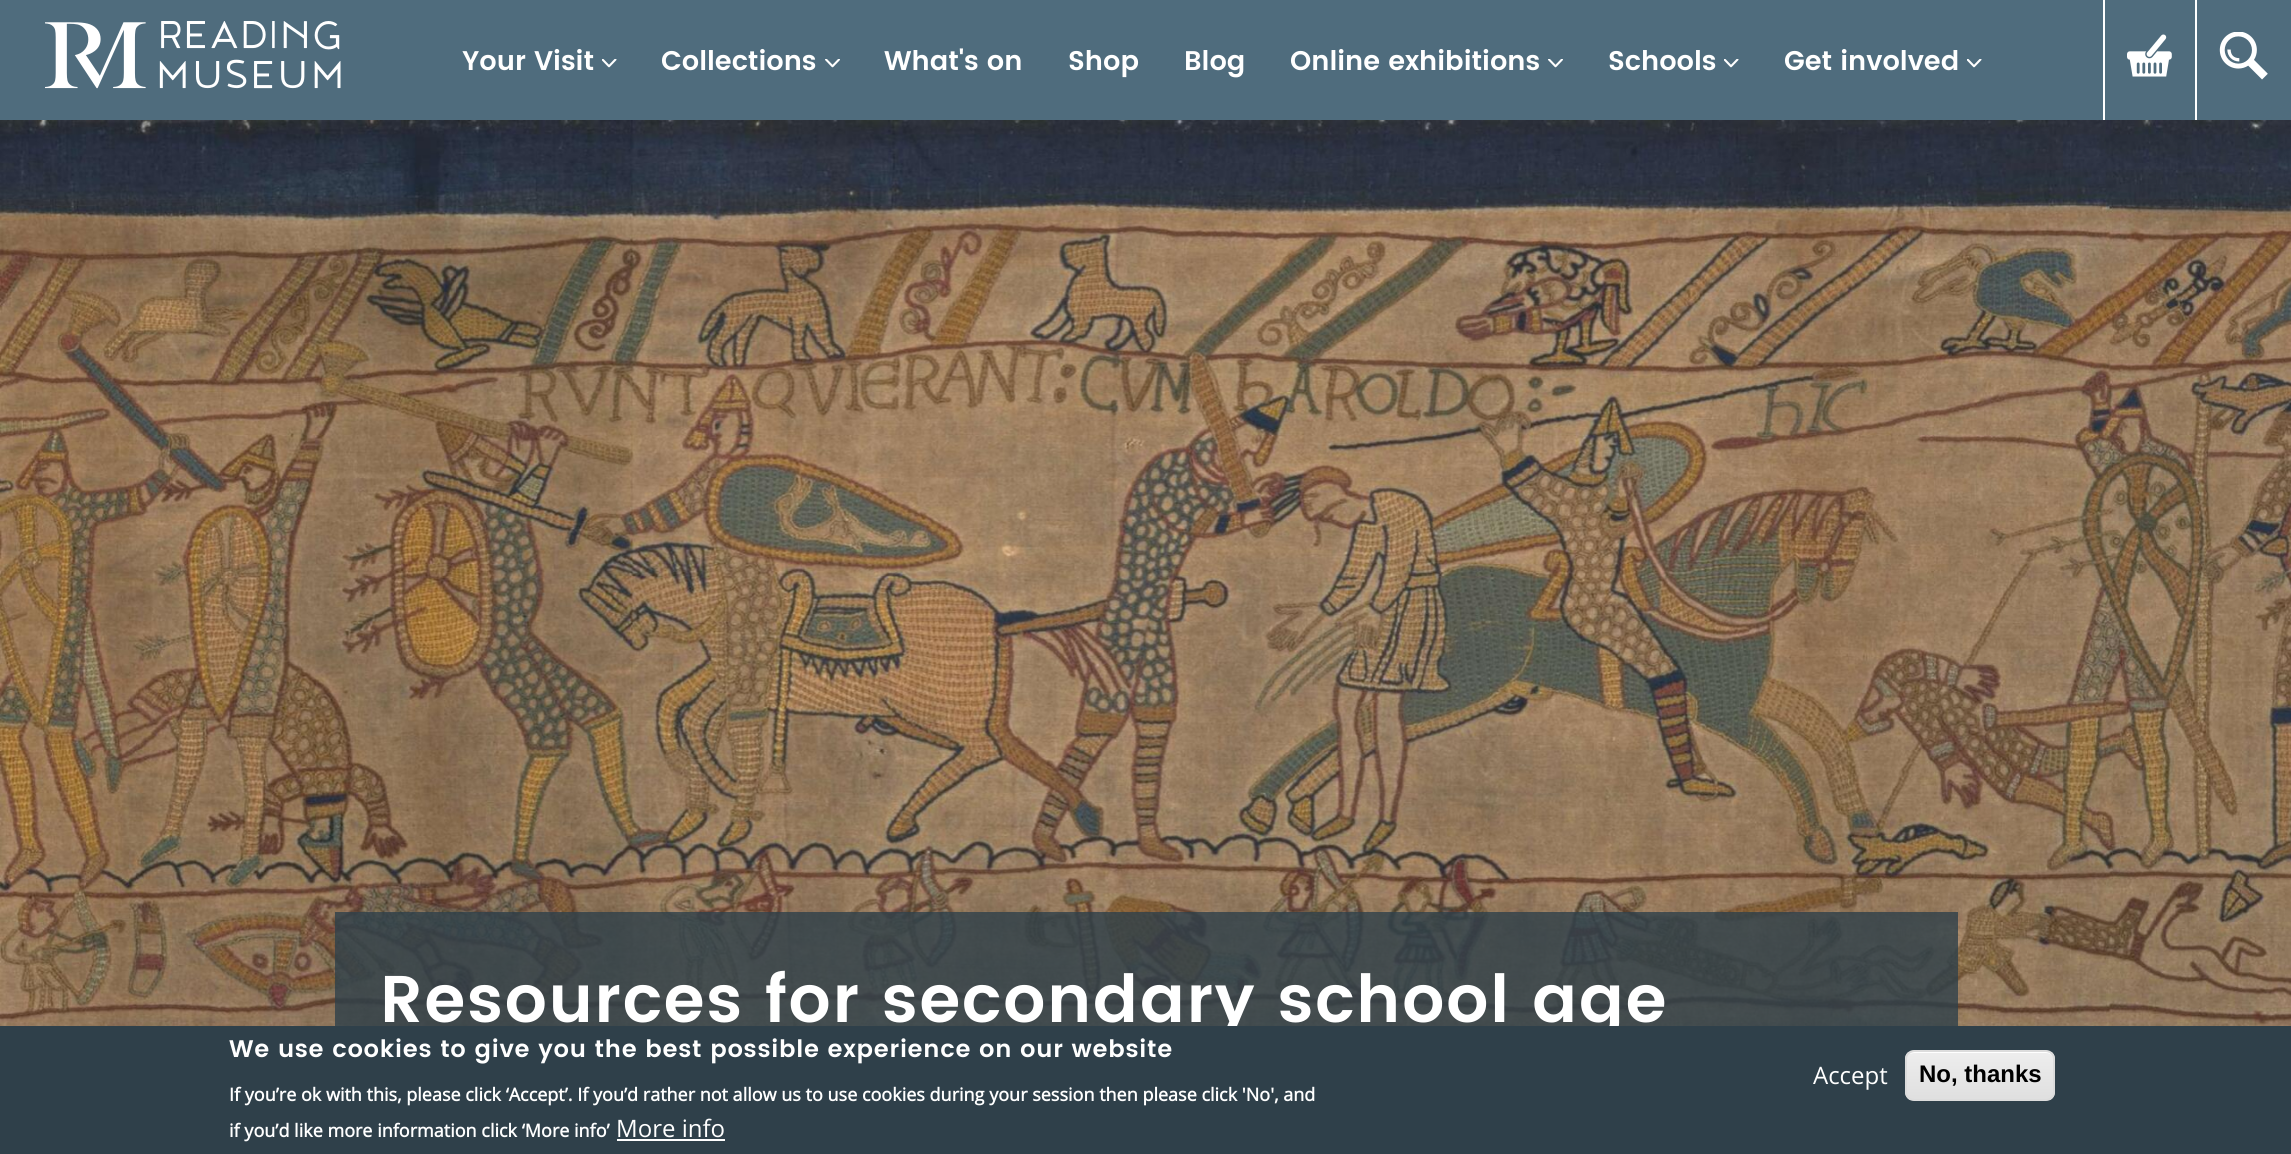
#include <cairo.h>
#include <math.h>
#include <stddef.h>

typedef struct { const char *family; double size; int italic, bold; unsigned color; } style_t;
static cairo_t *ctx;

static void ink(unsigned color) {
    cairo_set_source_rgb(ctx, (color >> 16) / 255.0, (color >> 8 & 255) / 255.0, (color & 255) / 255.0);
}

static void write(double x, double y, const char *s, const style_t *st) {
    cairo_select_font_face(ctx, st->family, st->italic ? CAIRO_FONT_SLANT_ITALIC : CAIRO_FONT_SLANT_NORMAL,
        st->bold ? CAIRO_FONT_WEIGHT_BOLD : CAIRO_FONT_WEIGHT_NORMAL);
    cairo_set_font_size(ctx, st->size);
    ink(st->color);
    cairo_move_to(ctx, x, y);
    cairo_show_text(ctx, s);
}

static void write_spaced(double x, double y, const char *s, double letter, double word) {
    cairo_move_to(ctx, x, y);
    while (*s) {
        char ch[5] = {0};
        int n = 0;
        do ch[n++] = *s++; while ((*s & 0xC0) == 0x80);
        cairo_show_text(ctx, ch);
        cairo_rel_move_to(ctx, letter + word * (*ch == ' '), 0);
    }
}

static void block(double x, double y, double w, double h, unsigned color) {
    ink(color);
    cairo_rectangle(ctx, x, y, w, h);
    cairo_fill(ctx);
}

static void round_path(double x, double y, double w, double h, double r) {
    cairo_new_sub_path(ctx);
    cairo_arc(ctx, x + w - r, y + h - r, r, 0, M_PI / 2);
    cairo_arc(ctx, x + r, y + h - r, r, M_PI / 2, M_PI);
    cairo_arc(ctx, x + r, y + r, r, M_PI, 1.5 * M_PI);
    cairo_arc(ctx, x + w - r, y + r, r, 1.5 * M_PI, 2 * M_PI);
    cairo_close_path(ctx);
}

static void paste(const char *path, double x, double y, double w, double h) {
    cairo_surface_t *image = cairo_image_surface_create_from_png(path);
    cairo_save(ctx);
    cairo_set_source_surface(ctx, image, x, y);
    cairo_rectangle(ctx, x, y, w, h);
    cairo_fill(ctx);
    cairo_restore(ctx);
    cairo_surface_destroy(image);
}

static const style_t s1 = {"Poppins SemiBold", 27, 0, 0, 0xffffff};
static const style_t s2 = {"Open Sans", 18, 0, 1, 0xffffff};
static const style_t s3 = {"Open Sans", 24, 0, 0, 0xffffff};
static const style_t s4 = {"Liberation Sans", 24, 0, 1, 0x000000};

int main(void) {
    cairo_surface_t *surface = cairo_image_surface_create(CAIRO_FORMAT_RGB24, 2291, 1154);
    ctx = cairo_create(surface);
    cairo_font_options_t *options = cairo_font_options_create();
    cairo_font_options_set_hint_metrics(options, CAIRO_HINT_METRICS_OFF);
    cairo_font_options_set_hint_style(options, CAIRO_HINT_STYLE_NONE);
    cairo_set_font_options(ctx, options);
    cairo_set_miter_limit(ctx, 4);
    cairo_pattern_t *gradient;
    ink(0xffffff);
    cairo_paint(ctx);
    block(0, 0, 2291, 120, 0x4f6c7d);
    paste("pic1.png", 45, 21, 296, 68);
    write(462, 70, "Your Visit", &s1);
    paste("pic2.png", 602, 59, 15, 9);
    write(661, 70, "Collections", &s1);
    paste("pic3.png", 825, 59, 15, 9);
    write(884, 70, "What's on", &s1);
    write(1068, 70, "Shop", &s1);
    write(1184, 70, "Blog", &s1);
    write(1290, 70, "Online exhibitions", &s1);
    paste("pic3.png", 1548, 59, 15, 9);
    write(1608, 70, "Schools", &s1);
    paste("pic2.png", 1724, 59, 15, 9);
    write(1784, 70, "Get involved", &s1);
    paste("pic2.png", 1967, 59, 15, 9);
    block(2103, 0, 2, 120, 0xffffff);
    paste("pic4.png", 2127, 34, 45, 43);
    block(2195, 0, 2, 120, 0xffffff);
    paste("pic5.png", 2219, 32, 49, 48);
    paste("pic6.png", 0, 120, 2291, 906);
    cairo_set_source_rgba(ctx, 0.184, 0.251, 0.29, 0.8);
    cairo_rectangle(ctx, 335, 912, 1623, 114);
    cairo_fill(ctx);
    cairo_set_font_size(ctx, 66);
    ink(0xffffff);
    write_spaced(380, 1022, "Resources for secondary school age", 1.5, 0);
    block(0, 1026, 2291, 128, 0x2f404a);
    cairo_set_font_size(ctx, 24);
    ink(0xffffff);
    write_spaced(229, 1057, "We use cookies to give you the best possible experience on our website", 0.75, 0);
    write(229, 1101, "If you’re ok with this, please click ‘Accept’. If you’d rather not allow us to use cookies during your session then please click 'No', and", &s2);
    write(229, 1137, "if you’d like more information click ‘More info’", &s2);
    write(616, 1137, "More info", &s3);
    block(617, 1139, 108, 2, 0xffffff);
    write(1813, 1084, "Accept", &s3);
    cairo_save(ctx);
    round_path(1905, 1050, 150, 51, 9);
    cairo_clip(ctx);
    gradient = cairo_pattern_create_linear(1980, 1052, 1980, 1100);
    cairo_pattern_add_color_stop_rgba(gradient, 0.05, 0.929, 0.929, 0.929, 1);
    cairo_pattern_add_color_stop_rgba(gradient, 1, 0.875, 0.875, 0.875, 1);
    cairo_set_source(ctx, gradient);
    cairo_pattern_destroy(gradient);
    cairo_rectangle(ctx, 1905, 1052, 150, 48);
    cairo_fill(ctx);
    cairo_restore(ctx);
    cairo_new_path(ctx);
    cairo_move_to(ctx, 1914, 1053);
    cairo_line_to(ctx, 2046, 1053);
    cairo_curve_to(ctx, 2050, 1053, 2054, 1056, 2054, 1060);
    cairo_curve_to(ctx, 2054, 1056, 2050, 1052, 2046, 1052);
    cairo_line_to(ctx, 1915, 1052);
    cairo_curve_to(ctx, 1913, 1052, 1911, 1053, 1909, 1054);
    cairo_curve_to(ctx, 1911, 1054, 1912, 1053, 1914, 1053);
    cairo_close_path(ctx);
    cairo_fill(ctx);
    round_path(1906, 1051, 148, 49, 8);
    ink(0xdcdcdc);
    cairo_stroke(ctx);
    write(1919, 1082, "No, thanks", &s4);
    cairo_surface_write_to_png(surface, "screenshot.png");
    cairo_font_options_destroy(options);
    cairo_destroy(ctx);
    cairo_surface_destroy(surface);
    return 0;
}
